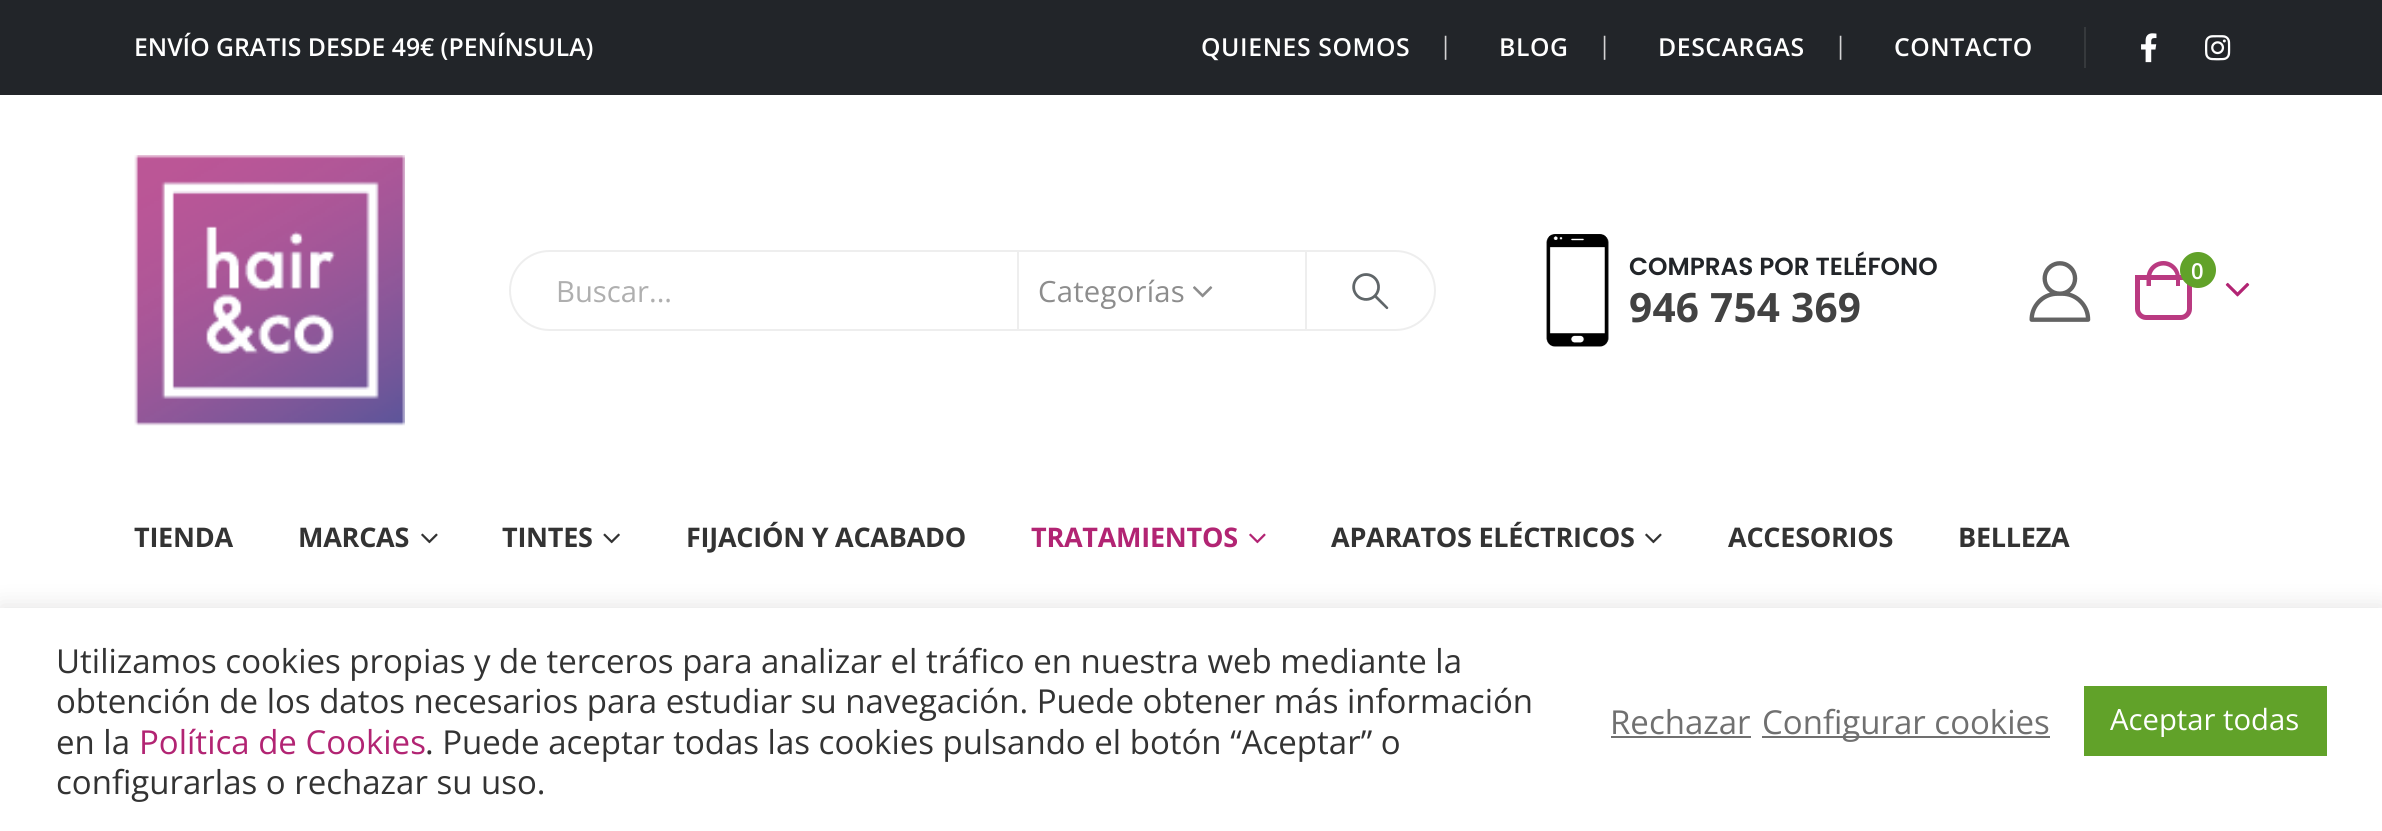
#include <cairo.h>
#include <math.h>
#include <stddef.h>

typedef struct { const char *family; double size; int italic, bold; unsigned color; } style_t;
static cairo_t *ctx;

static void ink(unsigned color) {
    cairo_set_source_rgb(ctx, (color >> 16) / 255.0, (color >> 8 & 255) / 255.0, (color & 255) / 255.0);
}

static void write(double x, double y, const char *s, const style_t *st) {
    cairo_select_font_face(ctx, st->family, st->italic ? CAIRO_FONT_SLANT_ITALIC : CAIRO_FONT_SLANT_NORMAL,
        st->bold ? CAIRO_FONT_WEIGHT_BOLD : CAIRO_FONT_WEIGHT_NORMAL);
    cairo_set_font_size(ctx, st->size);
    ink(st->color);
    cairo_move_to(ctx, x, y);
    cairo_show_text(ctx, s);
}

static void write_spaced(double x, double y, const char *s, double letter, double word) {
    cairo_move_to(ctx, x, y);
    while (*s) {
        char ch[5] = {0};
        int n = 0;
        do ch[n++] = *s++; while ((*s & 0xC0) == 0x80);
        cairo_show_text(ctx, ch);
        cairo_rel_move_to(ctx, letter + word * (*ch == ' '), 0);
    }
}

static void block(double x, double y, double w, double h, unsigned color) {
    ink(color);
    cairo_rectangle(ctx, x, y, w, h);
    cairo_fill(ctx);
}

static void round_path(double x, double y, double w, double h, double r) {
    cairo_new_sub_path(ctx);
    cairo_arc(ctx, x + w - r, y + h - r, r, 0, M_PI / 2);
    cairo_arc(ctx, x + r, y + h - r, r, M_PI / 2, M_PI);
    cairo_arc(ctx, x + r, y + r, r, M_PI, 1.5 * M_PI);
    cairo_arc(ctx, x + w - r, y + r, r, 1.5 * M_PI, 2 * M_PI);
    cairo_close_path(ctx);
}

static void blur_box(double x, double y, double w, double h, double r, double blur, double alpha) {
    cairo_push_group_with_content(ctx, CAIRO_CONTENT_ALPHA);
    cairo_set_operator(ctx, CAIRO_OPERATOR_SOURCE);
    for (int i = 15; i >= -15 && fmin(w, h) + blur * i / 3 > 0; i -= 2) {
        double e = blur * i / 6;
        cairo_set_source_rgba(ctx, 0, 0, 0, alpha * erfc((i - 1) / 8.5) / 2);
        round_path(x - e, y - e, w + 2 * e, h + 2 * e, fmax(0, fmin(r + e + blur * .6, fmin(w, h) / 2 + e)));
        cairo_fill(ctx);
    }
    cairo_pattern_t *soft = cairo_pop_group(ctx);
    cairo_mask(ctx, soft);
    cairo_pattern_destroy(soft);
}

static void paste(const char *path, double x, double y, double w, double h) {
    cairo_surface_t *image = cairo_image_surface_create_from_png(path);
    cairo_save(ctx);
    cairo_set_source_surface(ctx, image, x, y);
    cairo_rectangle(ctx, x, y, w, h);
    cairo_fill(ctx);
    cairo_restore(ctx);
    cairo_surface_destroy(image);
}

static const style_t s1 = {"Open Sans SemiBold", 24.75, 0, 0, 0xffffff};
static const style_t s2 = {"Open Sans", 24, 0, 0, 0xd3d3d4};
static const style_t s3 = {"Poppins SemiBold", 24.75, 0, 0, 0x222529};
static const style_t s4 = {"Open Sans SemiBold", 22, 0, 0, 0xffffff};
static const style_t s5 = {"Open Sans", 29.25, 0, 0, 0xafafaf};
static const style_t s6 = {"Open Sans", 33, 0, 0, 0x333333};
static const style_t s7 = {"Open Sans", 33, 0, 0, 0xb22473};
static const style_t s8 = {"Open Sans", 33, 0, 0, 0x707070};
static const style_t s9 = {"Open Sans", 29.25, 0, 0, 0xffffff};

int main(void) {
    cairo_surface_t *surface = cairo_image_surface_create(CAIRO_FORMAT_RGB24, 2382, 831);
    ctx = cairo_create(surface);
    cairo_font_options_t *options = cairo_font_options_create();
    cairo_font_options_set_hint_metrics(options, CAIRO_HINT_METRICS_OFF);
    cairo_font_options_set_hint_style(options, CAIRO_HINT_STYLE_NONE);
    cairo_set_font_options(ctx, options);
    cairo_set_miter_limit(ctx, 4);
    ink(0xffffff);
    cairo_paint(ctx);
    block(0, 0, 2382, 95, 0x222529);
    write(134, 56, "ENVÍO GRATIS DESDE 49€ (PENÍNSULA)", &s1);
    write_spaced(1201, 56, "QUIENES SOMOS", 0.6, 0);
    write(1439, 54, "|", &s2);
    cairo_select_font_face(ctx, "Open Sans SemiBold", CAIRO_FONT_SLANT_NORMAL, CAIRO_FONT_WEIGHT_NORMAL);
    cairo_set_font_size(ctx, 24.75);
    ink(0xffffff);
    write_spaced(1499, 56, "BLOG", 0.6, 0);
    write(1598, 54, "|", &s2);
    cairo_select_font_face(ctx, "Open Sans SemiBold", CAIRO_FONT_SLANT_NORMAL, CAIRO_FONT_WEIGHT_NORMAL);
    cairo_set_font_size(ctx, 24.75);
    ink(0xffffff);
    write_spaced(1658, 56, "DESCARGAS", 0.6, 0);
    write(1834, 54, "|", &s2);
    cairo_select_font_face(ctx, "Open Sans SemiBold", CAIRO_FONT_SLANT_NORMAL, CAIRO_FONT_WEIGHT_NORMAL);
    cairo_set_font_size(ctx, 24.75);
    ink(0xffffff);
    write_spaced(1894, 56, "CONTACTO", 0.6, 0);
    block(2084, 27, 2, 41, 0x36393c);
    paste("pic1.png", 2141, 33, 16, 30);
    paste("pic2.png", 2205, 35, 26, 26);
    paste("pic3.png", 134, 155, 271, 271);
    paste("pic4.png", 1546, 234, 63, 113);
    write(1629, 275, "COMPRAS POR TELÉFONO", &s3);
    cairo_select_font_face(ctx, "Open Sans", CAIRO_FONT_SLANT_NORMAL, CAIRO_FONT_WEIGHT_BOLD);
    cairo_set_font_size(ctx, 40.5);
    ink(0x424242);
    write_spaced(1629, 322, "946 754 369", 0.25, 0);
    paste("pic5.png", 2029, 261, 62, 61);
    cairo_new_path(ctx);
    cairo_move_to(ctx, 2137.5, 277.5);
    cairo_line_to(ctx, 2189.5, 277.5);
    cairo_line_to(ctx, 2189.5, 309);
    cairo_curve_to(ctx, 2189.5, 313.5, 2185.5, 317.5, 2181, 317.5);
    cairo_line_to(ctx, 2146, 317.5);
    cairo_curve_to(ctx, 2141.5, 317.5, 2137.5, 313.5, 2137.5, 309);
    cairo_close_path(ctx);
    ink(0xba3a81);
    cairo_set_line_width(ctx, 5);
    cairo_stroke(ctx);
    cairo_set_fill_rule(ctx, CAIRO_FILL_RULE_EVEN_ODD);
    cairo_new_path(ctx);
    cairo_move_to(ctx, 2163.5, 261);
    cairo_curve_to(ctx, 2172.5, 261, 2180, 268.5, 2180, 278);
    cairo_line_to(ctx, 2180, 286);
    cairo_line_to(ctx, 2146.5, 286);
    cairo_line_to(ctx, 2146.5, 278);
    cairo_curve_to(ctx, 2146.5, 268.5, 2154, 261, 2163.5, 261);
    cairo_close_path(ctx);
    cairo_move_to(ctx, 2163.5, 265.5);
    cairo_curve_to(ctx, 2170, 265.5, 2176, 271, 2176, 278);
    cairo_line_to(ctx, 2176, 286);
    cairo_line_to(ctx, 2151, 286);
    cairo_line_to(ctx, 2151, 278);
    cairo_curve_to(ctx, 2151, 271, 2156.5, 265.5, 2163.5, 265.5);
    cairo_close_path(ctx);
    cairo_fill(ctx);
    ink(0x61a229);
    cairo_arc(ctx, 2198, 270, 18, 0, 2 * M_PI);
    cairo_fill(ctx);
    write(2191, 279, "0", &s4);
    paste("pic6.png", 2225, 282, 25, 15);
    round_path(510, 251, 925, 79, 39.5);
    ink(0xeeeeee);
    cairo_set_line_width(ctx, 2);
    cairo_stroke(ctx);
    write(556, 302, "Buscar...", &s5);
    block(1305, 252, 2, 77, 0xeeeeee);
    block(1017, 252, 2, 77, 0xeeeeee);
    ink(0x8d8d8d);
    write_spaced(1038, 302, "Categorías", 0.25, 0);
    paste("pic7.png", 1193, 286, 20, 12);
    paste("pic8.png", 1352, 273, 37, 37);
    cairo_select_font_face(ctx, "Open Sans", CAIRO_FONT_SLANT_NORMAL, CAIRO_FONT_WEIGHT_BOLD);
    cairo_set_font_size(ctx, 27);
    ink(0x333333);
    write_spaced(134, 547, "TIENDA", -0.25, 0);
    write_spaced(298, 547, "MARCAS", -0.25, 0);
    paste("pic9.png", 421, 533, 17, 11);
    write_spaced(502, 547, "TINTES", -0.25, 0);
    paste("pic10.png", 603, 533, 17, 11);
    write_spaced(686, 547, "FIJACIÓN Y ACABADO", -0.25, 0);
    ink(0xb22473);
    write_spaced(1031, 547, "TRATAMIENTOS", -0.25, 0);
    paste("pic11.png", 1249, 533, 17, 11);
    ink(0x333333);
    write_spaced(1331, 547, "APARATOS ELÉCTRICOS", -0.25, 0);
    paste("pic9.png", 1645, 533, 17, 11);
    write_spaced(1728, 547, "ACCESORIOS", -0.25, 0);
    write_spaced(1958, 547, "BELLEZA", -0.25, 0);
    ink(0xacabab);
    blur_box(0, 605, 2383, 225, 0, 11, 0.3);
    block(0, 608, 2382, 223, 0xffffff);
    write(56, 673, "Utilizamos cookies propias y de terceros para analizar el tráfico en nuestra web mediante la", &s6);
    write(56, 713, "obtención de los datos necesarios para estudiar su navegación. Puede obtener más información", &s6);
    write(56, 754, "en la", &s6);
    write(139, 754, "Política de Cookies", &s7);
    write(425, 754, ". Puede aceptar todas las cookies pulsando el botón “Aceptar” o", &s6);
    write(56, 794, "configurarlas o rechazar su uso.", &s6);
    write(1610, 734, "Rechazar", &s8);
    block(1611, 736, 140, 2, 0x707070);
    block(1762, 736, 288, 2, 0x707070);
    write(1762, 734, "Configurar cookies", &s8);
    block(2084, 686, 243, 70, 0x61a229);
    write(2110, 730, "Aceptar todas", &s9);
    cairo_surface_write_to_png(surface, "screenshot.png");
    cairo_font_options_destroy(options);
    cairo_destroy(ctx);
    cairo_surface_destroy(surface);
    return 0;
}
